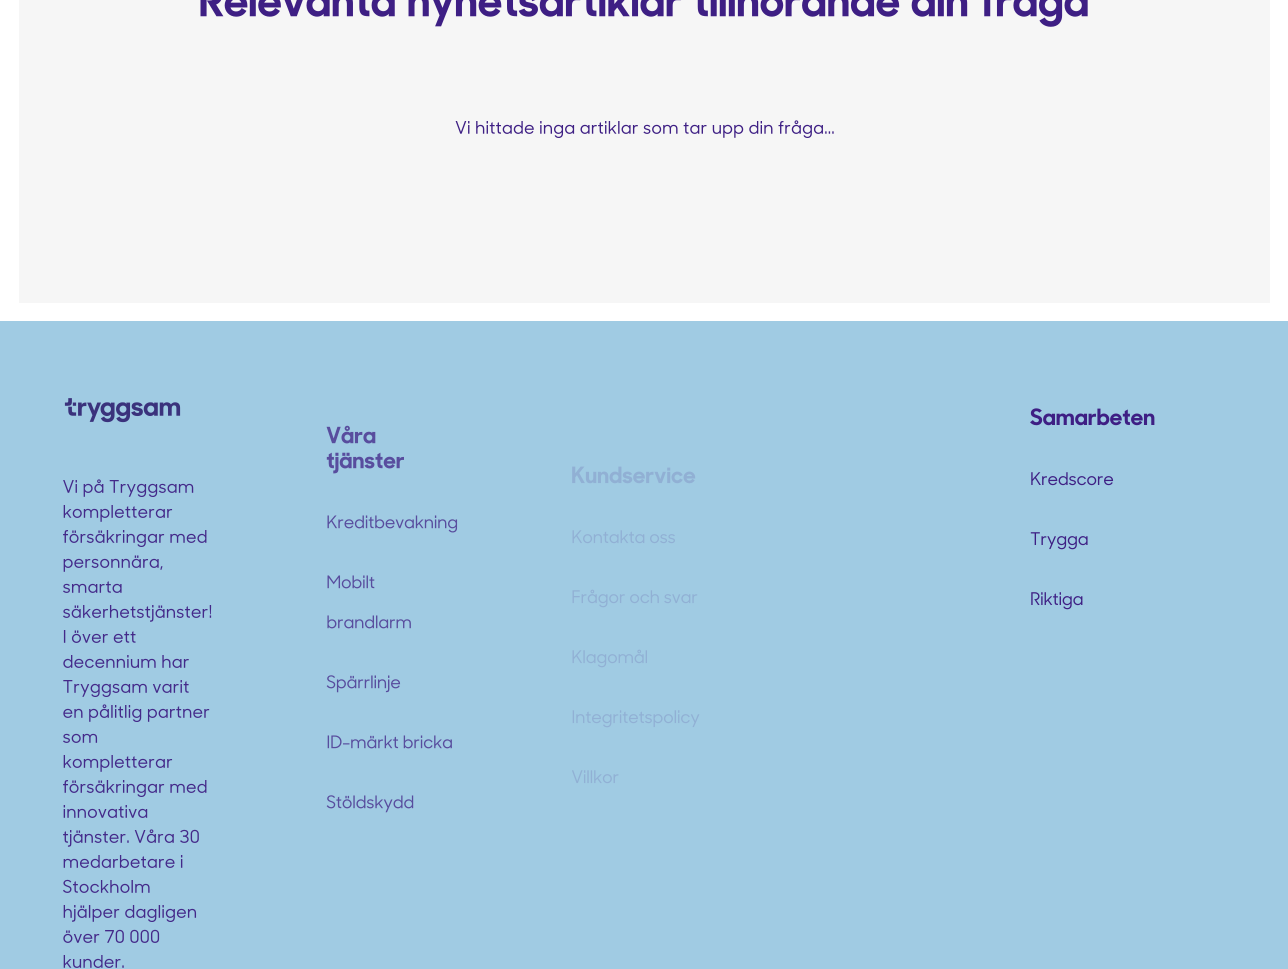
#include <cairo.h>
#include <math.h>
#include <stddef.h>

static cairo_t *ctx;

static void ink(unsigned color) {
    cairo_set_source_rgb(ctx, (color >> 16) / 255.0, (color >> 8 & 255) / 255.0, (color & 255) / 255.0);
}

static void block(double x, double y, double w, double h, unsigned color) {
    ink(color);
    cairo_rectangle(ctx, x, y, w, h);
    cairo_fill(ctx);
}

static void paste(const char *path, double x, double y, double w, double h) {
    cairo_surface_t *image = cairo_image_surface_create_from_png(path);
    cairo_save(ctx);
    cairo_set_source_surface(ctx, image, x, y);
    cairo_rectangle(ctx, x, y, w, h);
    cairo_fill(ctx);
    cairo_restore(ctx);
    cairo_surface_destroy(image);
}

int main(void) {
    cairo_surface_t *surface = cairo_image_surface_create(CAIRO_FORMAT_RGB24, 1288, 969);
    ctx = cairo_create(surface);
    cairo_font_options_t *options = cairo_font_options_create();
    cairo_font_options_set_hint_metrics(options, CAIRO_HINT_METRICS_OFF);
    cairo_font_options_set_hint_style(options, CAIRO_HINT_STYLE_NONE);
    cairo_set_font_options(ctx, options);
    cairo_set_miter_limit(ctx, 4);
    ink(0xffffff);
    cairo_paint(ctx);
    block(19, 0, 1251, 303, 0xf6f6f6);
    paste("pic1.png", 200, 0, 888, 27);
    paste("pic2.png", 455, 120, 379, 18);
    block(0, 321, 1288, 648, 0xa0cbe3);
    paste("pic3.png", 64, 398, 117, 25);
    paste("pic4.png", 63, 479, 131, 18);
    paste("pic5.png", 63, 505, 110, 17);
    paste("pic6.png", 63, 530, 144, 17);
    paste("pic7.png", 63, 555, 100, 17);
    paste("pic8.png", 63, 581, 59, 12);
    paste("pic9.png", 63, 605, 149, 17);
    paste("pic10.png", 63, 630, 73, 13);
    paste("pic11.png", 63, 655, 126, 13);
    paste("pic12.png", 63, 680, 126, 17);
    paste("pic13.png", 63, 704, 147, 18);
    paste("pic14.png", 63, 733, 35, 10);
    paste("pic5.png", 63, 755, 110, 17);
    paste("pic6.png", 63, 780, 144, 17);
    paste("pic15.png", 63, 805, 85, 13);
    paste("pic16.png", 63, 829, 136, 18);
    paste("pic17.png", 63, 855, 120, 13);
    paste("pic18.png", 63, 879, 87, 14);
    paste("pic19.png", 63, 905, 134, 17);
    paste("pic20.png", 63, 929, 97, 14);
    paste("pic21.png", 63, 955, 61, 13);
    paste("pic22.png", 326, 425, 50, 19);
    paste("pic23.png", 326, 452, 78, 22);
    paste("pic24.png", 327, 515, 131, 18);
    paste("pic25.png", 327, 575, 48, 14);
    paste("pic26.png", 327, 615, 84, 14);
    paste("pic27.png", 326, 675, 75, 18);
    paste("pic28.png", 327, 735, 125, 14);
    paste("pic29.png", 326, 795, 88, 18);
    paste("pic30.png", 572, 466, 124, 18);
    paste("pic31.png", 572, 530, 103, 14);
    paste("pic32.png", 572, 589, 126, 19);
    paste("pic33.png", 572, 649, 75, 19);
    paste("pic34.png", 572, 710, 128, 18);
    paste("pic35.png", 572, 770, 47, 14);
    paste("pic36.png", 1030, 408, 125, 18);
    paste("pic37.png", 1031, 472, 83, 14);
    paste("pic38.png", 1030, 532, 58, 18);
    paste("pic39.png", 1031, 592, 52, 18);
    cairo_surface_write_to_png(surface, "screenshot.png");
    cairo_font_options_destroy(options);
    cairo_destroy(ctx);
    cairo_surface_destroy(surface);
    return 0;
}
